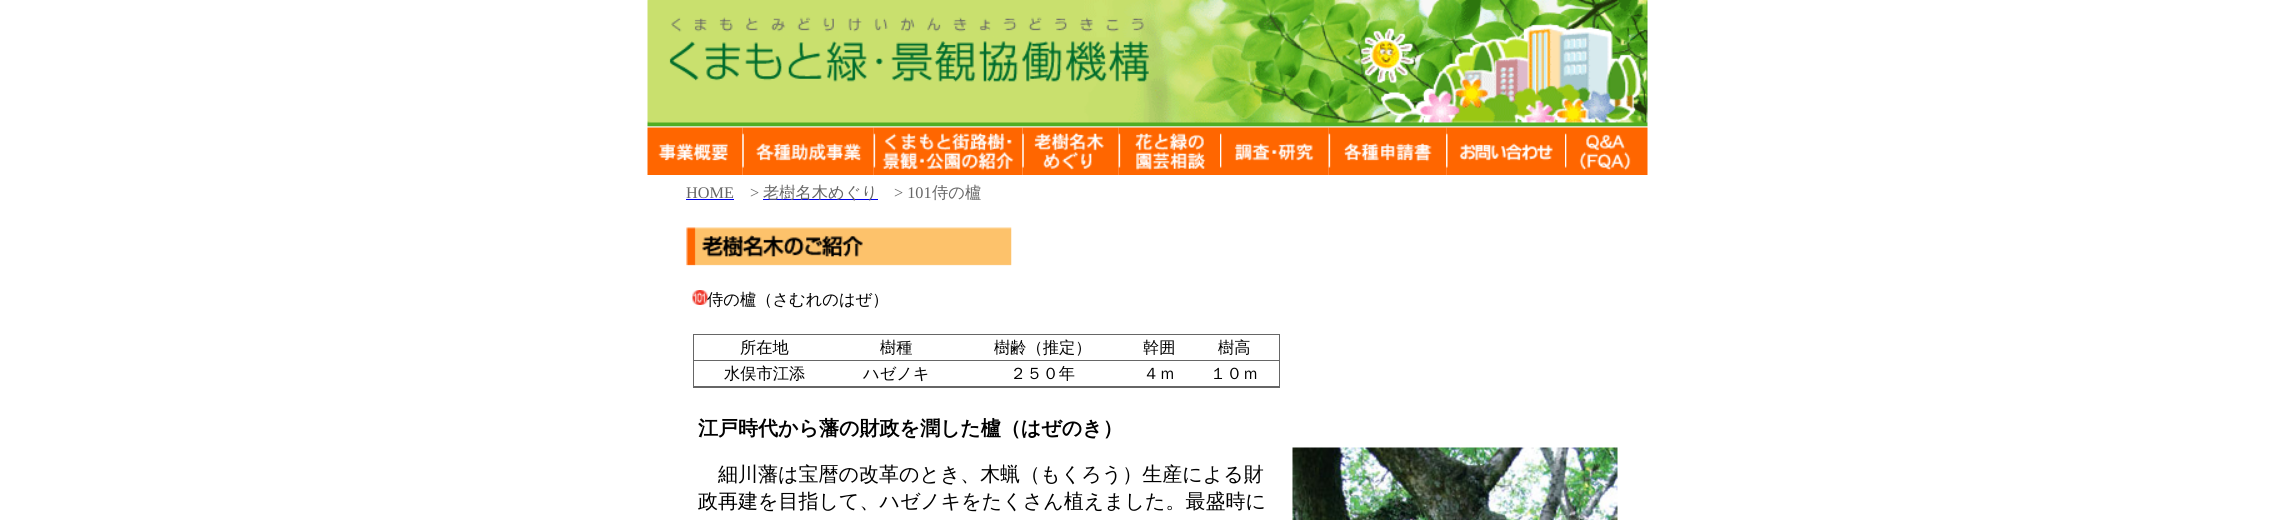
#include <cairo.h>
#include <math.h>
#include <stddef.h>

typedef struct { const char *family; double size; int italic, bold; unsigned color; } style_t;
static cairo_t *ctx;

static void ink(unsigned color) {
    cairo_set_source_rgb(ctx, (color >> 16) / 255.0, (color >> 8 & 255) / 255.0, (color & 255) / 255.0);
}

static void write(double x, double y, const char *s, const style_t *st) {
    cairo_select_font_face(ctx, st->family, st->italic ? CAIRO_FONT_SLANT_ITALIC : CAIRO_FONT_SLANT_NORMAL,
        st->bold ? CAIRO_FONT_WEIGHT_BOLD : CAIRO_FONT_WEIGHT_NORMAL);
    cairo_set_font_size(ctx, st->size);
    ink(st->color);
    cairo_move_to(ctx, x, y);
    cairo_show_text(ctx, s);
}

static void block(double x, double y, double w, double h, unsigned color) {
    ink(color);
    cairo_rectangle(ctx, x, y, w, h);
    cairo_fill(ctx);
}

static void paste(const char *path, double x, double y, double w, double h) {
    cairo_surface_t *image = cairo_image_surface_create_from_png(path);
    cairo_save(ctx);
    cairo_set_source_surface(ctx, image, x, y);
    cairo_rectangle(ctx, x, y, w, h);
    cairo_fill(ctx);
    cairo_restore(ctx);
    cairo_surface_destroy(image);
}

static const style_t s1 = {"Liberation Serif", 16.25, 0, 0, 0x666666};
static const style_t s2 = {"WenQuanYi Zen Hei Medium", 16.25, 0, 0, 0x666666};
static const style_t s3 = {"WenQuanYi Zen Hei Medium", 16.25, 0, 0, 0x000000};
static const style_t s4 = {"WenQuanYi Zen Hei", 20, 0, 1, 0x000000};
static const style_t s5 = {"WenQuanYi Zen Hei Medium", 20, 0, 0, 0x000000};

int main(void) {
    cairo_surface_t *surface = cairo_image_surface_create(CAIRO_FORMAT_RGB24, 2293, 520);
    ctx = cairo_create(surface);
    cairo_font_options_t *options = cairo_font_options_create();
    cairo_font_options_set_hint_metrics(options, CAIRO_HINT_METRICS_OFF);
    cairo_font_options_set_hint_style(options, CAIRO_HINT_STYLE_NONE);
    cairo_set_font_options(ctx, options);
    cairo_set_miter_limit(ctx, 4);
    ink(0xffffff);
    cairo_paint(ctx);
    paste("pic1.png", 647, 0, 1001, 127);
    paste("pic2.png", 647, 127, 96, 48);
    paste("pic3.png", 742, 127, 132, 48);
    paste("pic4.png", 873, 127, 150, 48);
    paste("pic5.png", 1022, 127, 97, 48);
    paste("pic6.png", 1118, 127, 102, 48);
    paste("pic7.png", 1220, 127, 109, 48);
    paste("pic8.png", 1328, 127, 119, 48);
    paste("pic9.png", 1446, 127, 119, 48);
    paste("pic10.png", 1565, 127, 83, 48);
    write(686, 198, "HOME", &s1);
    block(686, 199, 48, 1, 0x0000ee);
    write(750, 198, ">", &s1);
    block(763, 199, 115, 1, 0x0000ee);
    write(763, 198, "老樹名木めぐり", &s2);
    write(894, 198, "> 101", &s1);
    write(932, 198, "侍の櫨", &s2);
    paste("pic11.png", 686, 227, 326, 39);
    paste("pic12.png", 692, 290, 16, 15);
    write(707, 305, "侍の櫨（さむれのはぜ）", &s3);
    block(693, 334, 587, 54, 0x666666);
    block(694, 335, 585, 25, 0xffffff);
    write(740, 353, "所在地", &s3);
    write(880, 353, "樹種", &s3);
    write(994, 353, "樹齢（推定）", &s3);
    write(1143, 353, "幹囲", &s3);
    write(1218, 353, "樹高", &s3);
    block(694, 361, 585, 25, 0xffffff);
    write(724, 379, "水俣市江添", &s3);
    write(863, 379, "ハゼノキ", &s3);
    write(1010, 379, "２５０年", &s3);
    write(1143, 379, "４ｍ", &s3);
    write(1210, 379, "１０ｍ", &s3);
    write(698, 435, "江戸時代から藩の財政を潤した櫨（はぜのき）", &s4);
    write(718, 481, "細川藩は宝暦の改革のとき、木蝋（もくろう）生産による財", &s5);
    write(698, 508, "政再建を目指して、ハゼノキをたくさん植えました。最盛時に", &s5);
    paste("pic13.png", 1292, 447, 326, 73);
    cairo_surface_write_to_png(surface, "screenshot.png");
    cairo_font_options_destroy(options);
    cairo_destroy(ctx);
    cairo_surface_destroy(surface);
    return 0;
}
